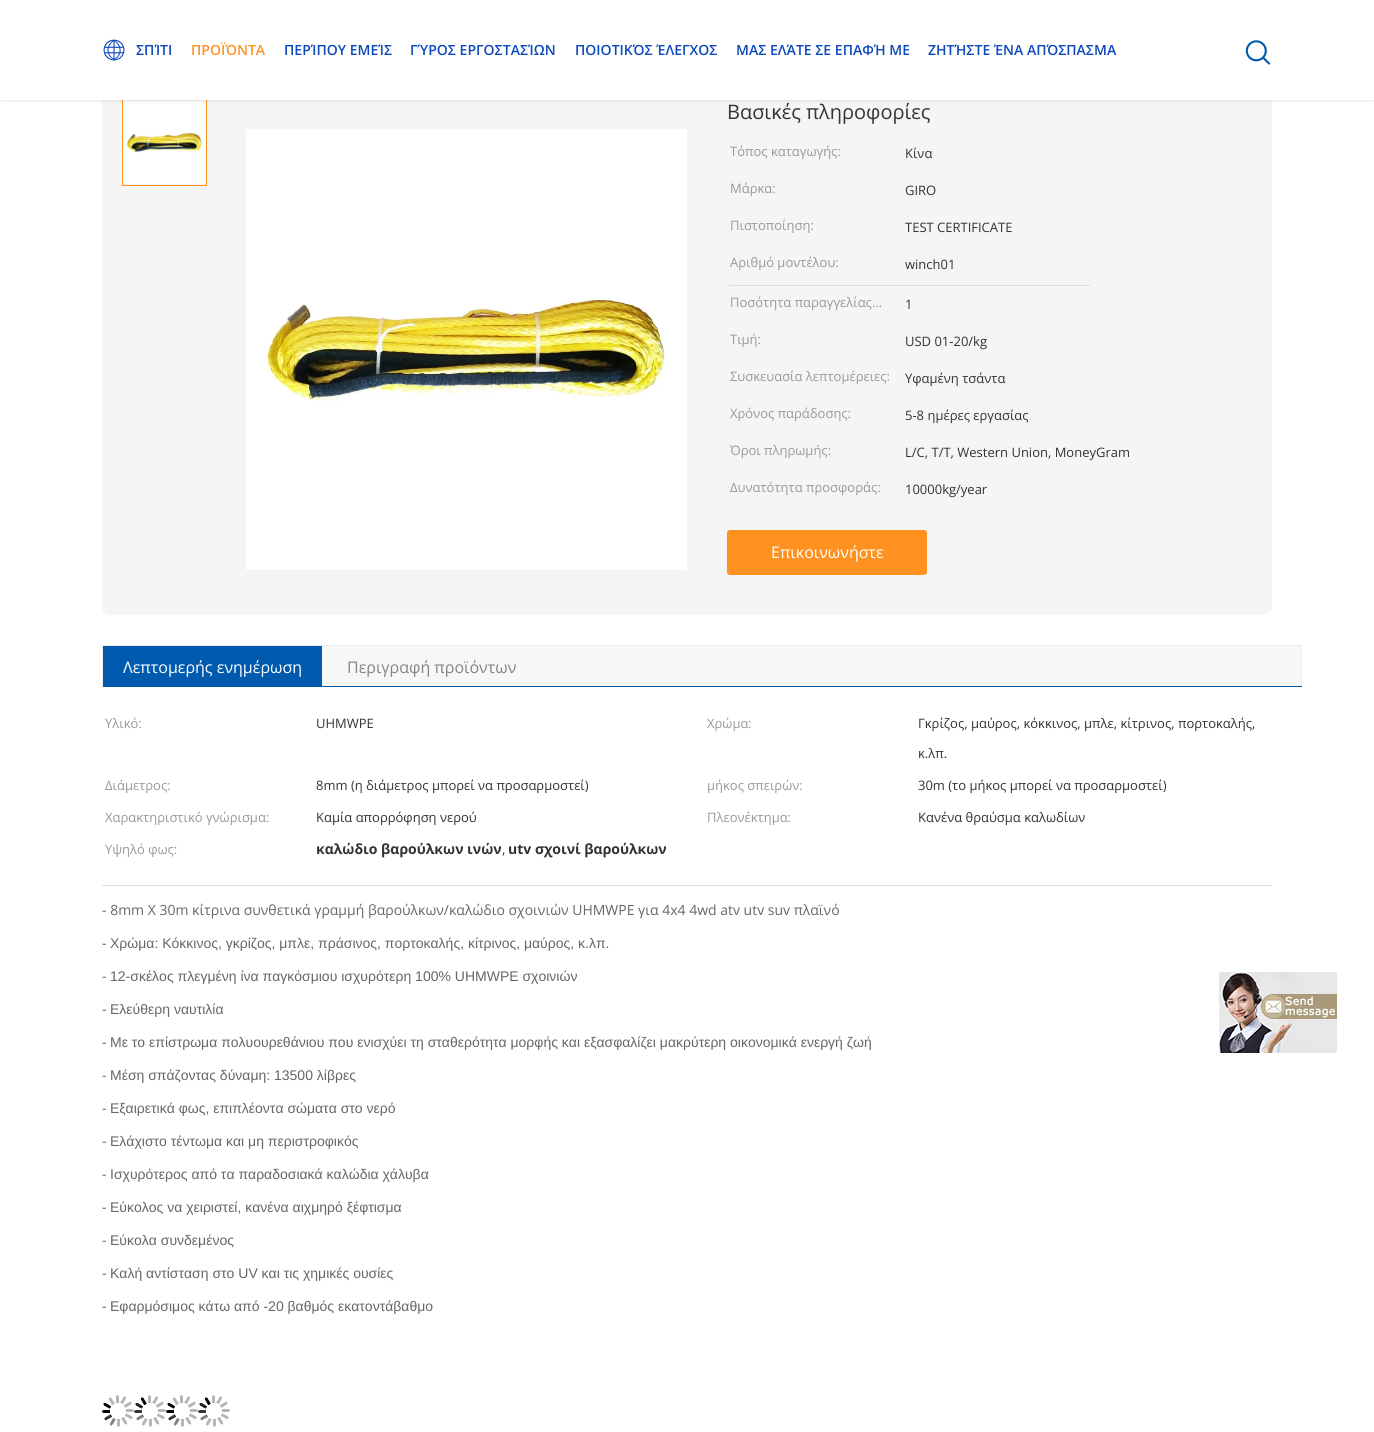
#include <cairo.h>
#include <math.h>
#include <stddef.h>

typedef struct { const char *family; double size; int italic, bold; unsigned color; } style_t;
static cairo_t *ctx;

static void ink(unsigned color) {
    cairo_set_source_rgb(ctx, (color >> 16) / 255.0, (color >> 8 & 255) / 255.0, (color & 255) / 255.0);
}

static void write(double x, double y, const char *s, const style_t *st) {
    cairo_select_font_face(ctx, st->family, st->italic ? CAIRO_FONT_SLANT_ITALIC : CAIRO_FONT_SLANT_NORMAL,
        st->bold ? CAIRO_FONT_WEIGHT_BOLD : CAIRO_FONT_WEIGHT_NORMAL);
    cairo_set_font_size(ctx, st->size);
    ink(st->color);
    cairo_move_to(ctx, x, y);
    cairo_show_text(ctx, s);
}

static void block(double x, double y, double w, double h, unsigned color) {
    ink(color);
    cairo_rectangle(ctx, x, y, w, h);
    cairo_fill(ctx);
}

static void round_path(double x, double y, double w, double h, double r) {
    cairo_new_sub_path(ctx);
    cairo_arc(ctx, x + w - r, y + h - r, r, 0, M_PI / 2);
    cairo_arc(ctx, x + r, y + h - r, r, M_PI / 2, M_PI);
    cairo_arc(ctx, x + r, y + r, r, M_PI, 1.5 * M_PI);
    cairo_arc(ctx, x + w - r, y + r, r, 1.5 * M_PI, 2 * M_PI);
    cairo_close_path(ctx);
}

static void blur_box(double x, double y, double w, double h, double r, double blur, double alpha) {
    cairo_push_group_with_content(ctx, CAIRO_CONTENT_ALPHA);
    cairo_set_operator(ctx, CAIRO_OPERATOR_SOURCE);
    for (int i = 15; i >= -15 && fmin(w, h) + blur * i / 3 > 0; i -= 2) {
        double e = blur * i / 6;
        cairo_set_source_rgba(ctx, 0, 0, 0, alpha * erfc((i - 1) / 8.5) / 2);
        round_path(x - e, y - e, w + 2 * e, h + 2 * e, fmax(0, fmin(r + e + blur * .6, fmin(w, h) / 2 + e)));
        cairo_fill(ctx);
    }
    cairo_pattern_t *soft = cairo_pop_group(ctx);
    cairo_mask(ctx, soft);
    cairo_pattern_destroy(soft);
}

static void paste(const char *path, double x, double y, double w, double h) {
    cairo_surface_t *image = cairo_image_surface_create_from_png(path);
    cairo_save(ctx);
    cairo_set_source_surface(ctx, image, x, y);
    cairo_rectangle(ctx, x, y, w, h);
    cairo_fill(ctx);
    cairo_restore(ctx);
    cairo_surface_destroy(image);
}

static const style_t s1 = {"Open Sans SemiBold", 14, 0, 0, 0x0e49bb};
static const style_t s2 = {"Open Sans SemiBold", 14, 0, 0, 0xff9121};
static const style_t s3 = {"Open Sans", 20, 0, 0, 0x333333};
static const style_t s4 = {"Open Sans", 13, 0, 0, 0x999999};
static const style_t s5 = {"Open Sans", 13, 0, 0, 0x333333};
static const style_t s6 = {"Open Sans", 16, 0, 0, 0xffffff};
static const style_t s7 = {"Open Sans", 16, 0, 0, 0x848484};
static const style_t s8 = {"Open Sans", 14, 0, 1, 0x333333};
static const style_t s9 = {"Open Sans", 14, 0, 0, 0x666666};
static const style_t s10 = {"Liberation Sans", 14, 0, 0, 0x666666};

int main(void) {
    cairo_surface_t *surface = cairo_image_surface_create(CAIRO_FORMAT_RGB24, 1374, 1432);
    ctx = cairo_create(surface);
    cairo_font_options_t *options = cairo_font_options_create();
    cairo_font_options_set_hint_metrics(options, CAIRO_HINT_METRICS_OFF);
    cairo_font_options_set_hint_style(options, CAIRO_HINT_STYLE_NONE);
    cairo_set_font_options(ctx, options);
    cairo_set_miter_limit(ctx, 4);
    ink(0xffffff);
    cairo_paint(ctx);
    ink(0xf5f5f5);
    round_path(102, 78, 1170, 537, 8);
    cairo_fill(ctx);
    cairo_rectangle(ctx, 122.5, 98.5, 84, 87);
    ink(0xff9121);
    cairo_set_line_width(ctx, 1);
    cairo_stroke(ctx);
    paste("pic3.png", 123, 101, 83, 83);
    ink(0x000000);
    blur_box(0, 1, 1374, 100, 0, 1.5, 0.1);
    block(0, 0, 1374, 100, 0xffffff);
    paste("pic1.png", 103, 39, 22, 22);
    write(136, 55, "ΣΠΊΤΙ", &s1);
    write(191, 55, "ΠΡΟΪΌΝΤΑ", &s2);
    write(284, 55, "ΠΕΡΊΠΟΥ ΕΜΕΊΣ", &s1);
    write(410, 55, "ΓΎΡΟΣ ΕΡΓΟΣΤΑΣΊΩΝ", &s1);
    write(575, 55, "ΠΟΙΟΤΙΚΌΣ ΈΛΕΓΧΟΣ", &s1);
    write(736, 55, "ΜΑΣ ΕΛΆΤΕ ΣΕ ΕΠΑΦΉ ΜΕ", &s1);
    write(928, 55, "ΖΗΤΉΣΤΕ ΈΝΑ ΑΠΌΣΠΑΣΜΑ", &s1);
    paste("pic2.png", 1245, 40, 26, 25);
    paste("pic4.png", 246, 129, 441, 441);
    write(727, 119, "Βασικές πληροφορίες", &s3);
    write(730, 156, "Τόπος καταγωγής:", &s4);
    write(905, 158, "Κίνα", &s5);
    write(730, 193, "Μάρκα:", &s4);
    write(905, 195, "GIRO", &s5);
    write(730, 230, "Πιστοποίηση:", &s4);
    write(905, 232, "TEST CERTIFICATE", &s5);
    write(730, 267, "Αριθμό μοντέλου:", &s4);
    write(905, 269, "winch01", &s5);
    block(729, 285, 361, 1, 0xdddddd);
    write(730, 307, "Ποσότητα παραγγελίας…", &s4);
    write(905, 309, "1", &s5);
    write(730, 344, "Τιμή:", &s4);
    write(905, 346, "USD 01-20/kg", &s5);
    write(730, 381, "Συσκευασία λεπτομέρειες:", &s4);
    write(905, 383, "Υφαμένη τσάντα", &s5);
    write(730, 418, "Χρόνος παράδοσης:", &s4);
    write(905, 420, "5-8 ημέρες εργασίας", &s5);
    write(730, 455, "Όροι πληρωμής:", &s4);
    write(905, 457, "L/C, T/T, Western Union, MoneyGram", &s5);
    write(730, 492, "Δυνατότητα προσφοράς:", &s4);
    write(905, 494, "10000kg/year", &s5);
    ink(0xff9121);
    round_path(727, 530, 200, 45, 3);
    cairo_fill(ctx);
    write(771, 558, "Επικοινωνήστε", &s6);
    block(322, 646, 979, 40, 0xf7f7f7);
    block(102, 645, 1200, 1, 0xeeeeee);
    block(1301, 645, 1, 42, 0xeeeeee);
    block(102, 686, 1200, 1, 0x005aad);
    block(102, 645, 1, 42, 0xeeeeee);
    block(103, 646, 219, 40, 0x005aad);
    write(123, 673, "Λεπτομερής ενημέρωση", &s6);
    write(347, 673, "Περιγραφή προϊόντων", &s7);
    block(102, 885, 1170, 1, 0xdddddd);
    write(105, 728, "Υλικό:", &s4);
    write(316, 728, "UHMWPE", &s5);
    write(707, 728, "Χρώμα:", &s4);
    write(918, 728, "Γκρίζος, μαύρος, κόκκινος, μπλε, κίτρινος, πορτοκαλής,", &s5);
    write(918, 758, "κ.λπ.", &s5);
    write(105, 790, "Διάμετρος:", &s4);
    write(316, 790, "8mm (η διάμετρος μπορεί να προσαρμοστεί)", &s5);
    write(707, 790, "μήκος σπειρών:", &s4);
    write(918, 790, "30m (το μήκος μπορεί να προσαρμοστεί)", &s5);
    write(105, 822, "Χαρακτηριστικό γνώρισμα:", &s4);
    write(316, 822, "Καμία απορρόφηση νερού", &s5);
    write(707, 822, "Πλεονέκτημα:", &s4);
    write(918, 822, "Κανένα θραύσμα καλωδίων", &s5);
    write(105, 854, "Υψηλό φως:", &s4);
    write(316, 854, "καλώδιο βαρούλκων ινών", &s8);
    write(502, 854, ",", &s5);
    write(508, 854, "utv σχοινί βαρούλκων", &s8);
    write(102, 915, "- 8mm X 30m κίτρινα συνθετικά γραμμή βαρούλκων/καλώδιο σχοινιών UHMWPE για 4x4 4wd atv utv suv πλαϊνό", &s9);
    write(102, 948, "-", &s9);
    write(110, 948, "Χρώμα: Κόκκινος, γκρίζος, μπλε, πράσινος, πορτοκαλής, κίτρινος, μαύρος, κ.λπ.", &s10);
    write(102, 981, "-", &s9);
    write(110, 981, "12-σκέλος πλεγμένη ίνα παγκόσμιου ισχυρότερη 100% UHMWPE σχοινιών", &s10);
    write(102, 1014, "-", &s9);
    write(110, 1014, "Ελεύθερη ναυτιλία", &s10);
    write(102, 1047, "-", &s9);
    write(110, 1047, "Με το επίστρωμα πολυουρεθάνιου που ενισχύει τη σταθερότητα μορφής και εξασφαλίζει μακρύτερη οικονομικά ενεργή ζωή", &s10);
    write(102, 1080, "-", &s9);
    write(110, 1080, "Μέση σπάζοντας δύναμη: 13500 λίβρες", &s10);
    write(102, 1113, "-", &s9);
    write(110, 1113, "Εξαιρετικά φως, επιπλέοντα σώματα στο νερό", &s10);
    write(102, 1146, "-", &s9);
    write(110, 1146, "Ελάχιστο τέντωμα και μη περιστροφικός", &s10);
    write(102, 1179, "-", &s9);
    write(110, 1179, "Ισχυρότερος από τα παραδοσιακά καλώδια χάλυβα", &s10);
    write(102, 1212, "-", &s9);
    write(110, 1212, "Εύκολος να χειριστεί, κανένα αιχμηρό ξέφτισμα", &s10);
    write(102, 1245, "-", &s9);
    write(110, 1245, "Εύκολα συνδεμένος", &s10);
    write(102, 1278, "-", &s9);
    write(110, 1278, "Καλή αντίσταση στο UV και τις χημικές ουσίες", &s10);
    write(102, 1311, "-", &s9);
    write(110, 1311, "Εφαρμόσιμος κάτω από -20 βαθμός εκατοντάβαθμο", &s10);
    paste("pic5.png", 102, 1395, 32, 32);
    paste("pic6.png", 134, 1395, 32, 32);
    paste("pic5.png", 166, 1395, 32, 32);
    paste("pic6.png", 198, 1395, 32, 32);
    paste("pic7.png", 1219, 972, 118, 81);
    cairo_surface_write_to_png(surface, "screenshot.png");
    cairo_font_options_destroy(options);
    cairo_destroy(ctx);
    cairo_surface_destroy(surface);
    return 0;
}
